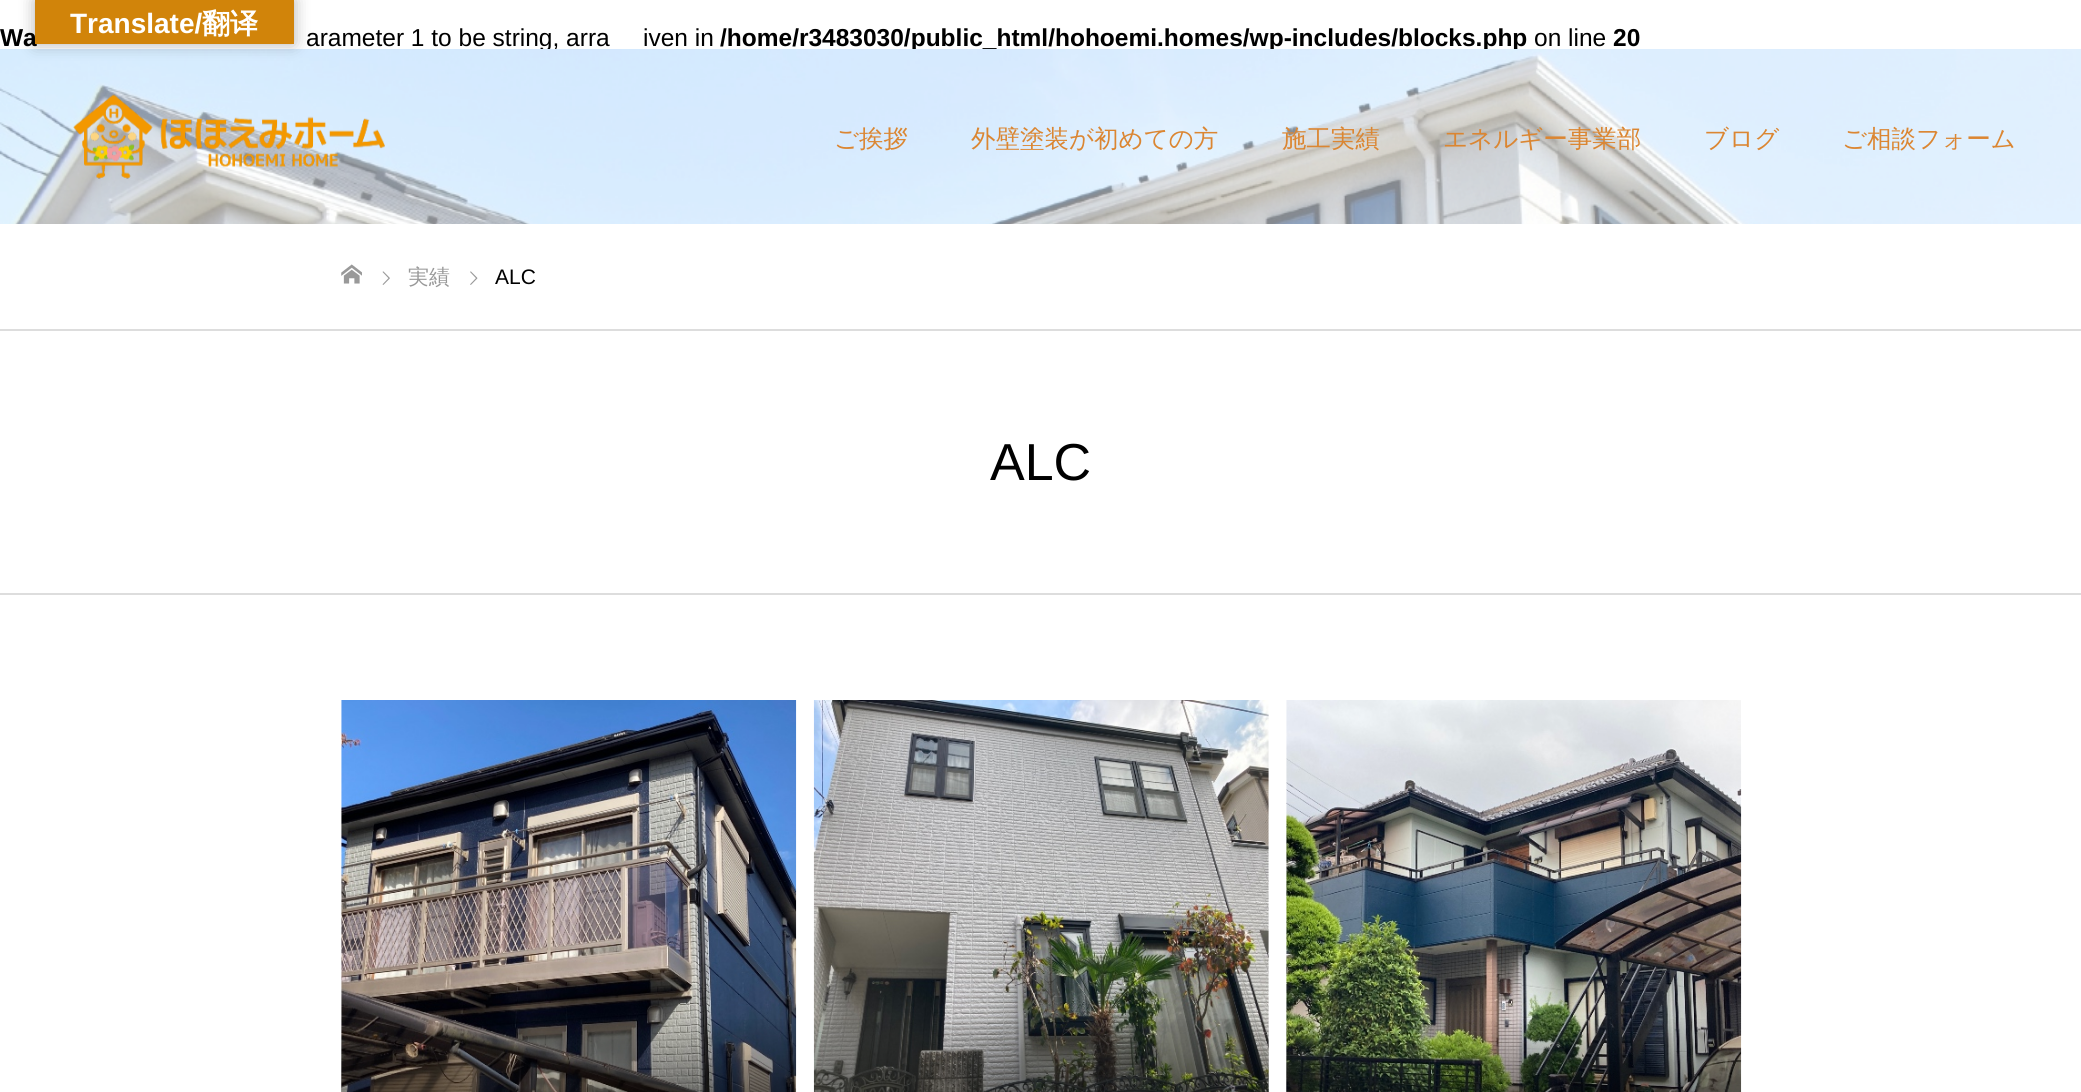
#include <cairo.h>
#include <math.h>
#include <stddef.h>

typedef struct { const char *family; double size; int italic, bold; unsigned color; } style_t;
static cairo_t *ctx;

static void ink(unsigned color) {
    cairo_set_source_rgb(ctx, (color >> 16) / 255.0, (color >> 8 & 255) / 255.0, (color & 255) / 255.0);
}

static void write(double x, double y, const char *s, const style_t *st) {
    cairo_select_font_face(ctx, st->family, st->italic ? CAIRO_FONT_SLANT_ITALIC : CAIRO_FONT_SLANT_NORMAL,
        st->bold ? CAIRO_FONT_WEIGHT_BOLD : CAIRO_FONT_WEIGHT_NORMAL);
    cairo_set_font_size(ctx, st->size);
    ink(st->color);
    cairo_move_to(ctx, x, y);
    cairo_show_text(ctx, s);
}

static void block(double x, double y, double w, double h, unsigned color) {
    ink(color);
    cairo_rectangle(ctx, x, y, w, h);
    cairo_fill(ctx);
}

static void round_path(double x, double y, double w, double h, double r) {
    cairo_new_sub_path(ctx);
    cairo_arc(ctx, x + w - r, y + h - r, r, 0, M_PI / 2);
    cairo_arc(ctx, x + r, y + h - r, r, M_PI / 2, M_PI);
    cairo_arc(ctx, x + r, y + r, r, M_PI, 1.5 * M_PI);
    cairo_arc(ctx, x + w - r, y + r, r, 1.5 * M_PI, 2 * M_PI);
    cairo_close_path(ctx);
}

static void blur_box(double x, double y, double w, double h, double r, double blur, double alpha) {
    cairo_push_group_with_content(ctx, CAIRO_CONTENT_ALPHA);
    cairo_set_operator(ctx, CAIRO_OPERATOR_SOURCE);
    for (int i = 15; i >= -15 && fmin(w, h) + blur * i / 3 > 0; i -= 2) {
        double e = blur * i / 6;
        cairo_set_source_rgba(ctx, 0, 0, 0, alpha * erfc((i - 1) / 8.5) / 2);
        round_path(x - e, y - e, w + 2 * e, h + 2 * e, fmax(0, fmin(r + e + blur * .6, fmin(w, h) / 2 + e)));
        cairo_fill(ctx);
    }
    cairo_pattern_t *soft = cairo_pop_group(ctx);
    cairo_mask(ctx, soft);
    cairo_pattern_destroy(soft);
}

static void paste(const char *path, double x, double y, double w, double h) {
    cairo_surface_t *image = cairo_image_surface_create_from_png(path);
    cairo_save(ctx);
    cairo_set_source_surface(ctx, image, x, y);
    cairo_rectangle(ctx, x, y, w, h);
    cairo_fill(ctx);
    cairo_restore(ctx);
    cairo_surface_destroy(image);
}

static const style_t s1 = {"Liberation Sans", 24.5, 0, 0, 0x000000};
static const style_t s2 = {"Liberation Sans", 24.5, 0, 1, 0x000000};
static const style_t s3 = {"Liberation Sans", 28, 0, 1, 0xffffff};
static const style_t s4 = {"WenQuanYi Zen Hei", 28, 0, 1, 0xffffff};
static const style_t s5 = {"WenQuanYi Zen Hei Medium", 24.5, 0, 0, 0xdb8632};
static const style_t s6 = {"WenQuanYi Zen Hei Medium", 21, 0, 0, 0x999999};
static const style_t s7 = {"Liberation Sans", 21, 0, 0, 0x000000};
static const style_t s8 = {"Liberation Sans", 52, 0, 0, 0x000000};

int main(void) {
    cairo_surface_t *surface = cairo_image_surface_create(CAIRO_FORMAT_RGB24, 2081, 1092);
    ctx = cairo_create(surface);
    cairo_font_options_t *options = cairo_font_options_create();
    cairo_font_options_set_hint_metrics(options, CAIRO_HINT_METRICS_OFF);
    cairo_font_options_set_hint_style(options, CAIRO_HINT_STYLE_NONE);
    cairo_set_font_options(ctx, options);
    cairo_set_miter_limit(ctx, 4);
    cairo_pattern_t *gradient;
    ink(0xffffff);
    cairo_paint(ctx);
    write(306, 46, "arameter 1 to be string, arra", &s1);
    write(720, 46, "/home/r3483030/public_html/hohoemi.homes/wp-includes/blocks.php", &s2);
    paste("pic1.png", 0, 49, 2081, 175);
    ink(0x000000);
    blur_box(35, 0, 259, 44, 0, 8, 0.3);
    write(0, 46, "Wa", &s2);
    block(35, 0, 259, 44, 0xd1840a);
    write(70, 33, "Translate/", &s3);
    write(202, 33, "翻译", &s4);
    write(643, 46, "iven in", &s1);
    write(1534, 46, "on line", &s1);
    write(1613, 46, "20", &s2);
    paste("pic2.png", 73, 94, 312, 85);
    write(834, 147, "ご挨拶", &s5);
    write(971, 147, "外壁塗装が初めての方", &s5);
    write(1282, 147, "施工実績", &s5);
    write(1443, 147, "エネルギー事業部", &s5);
    write(1704, 147, "ブログ", &s5);
    write(1842, 147, "ご相談フォーム", &s5);
    block(0, 329, 2081, 2, 0xdddddd);
    paste("pic3.png", 341, 264, 21, 20);
    paste("pic4.png", 382, 271, 8, 14);
    write(408, 284, "実績", &s6);
    paste("pic5.png", 470, 271, 8, 14);
    write(495, 284, "ALC", &s7);
    block(0, 593, 2081, 2, 0xdddddd);
    write(990, 480, "ALC", &s8);
    paste("pic6.png", 341, 700, 456, 392);
    gradient = cairo_pattern_create_linear(569, 1015, 569, 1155);
    cairo_pattern_add_color_stop_rgba(gradient, 0, 0, 0, 0, 0);
    cairo_pattern_add_color_stop_rgba(gradient, 1, 0, 0, 0, 0.7);
    cairo_set_source(ctx, gradient);
    cairo_pattern_destroy(gradient);
    cairo_rectangle(ctx, 341, 1019, 455, 73);
    cairo_fill(ctx);
    paste("pic7.png", 813, 700, 456, 392);
    gradient = cairo_pattern_create_linear(1041, 1015, 1041, 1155);
    cairo_pattern_add_color_stop_rgba(gradient, 0, 0, 0, 0, 0);
    cairo_pattern_add_color_stop_rgba(gradient, 1, 0, 0, 0, 0.7);
    cairo_set_source(ctx, gradient);
    cairo_pattern_destroy(gradient);
    cairo_rectangle(ctx, 814, 1019, 455, 73);
    cairo_fill(ctx);
    paste("pic8.png", 1286, 700, 456, 392);
    gradient = cairo_pattern_create_linear(1514, 1015, 1514, 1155);
    cairo_pattern_add_color_stop_rgba(gradient, 0, 0, 0, 0, 0);
    cairo_pattern_add_color_stop_rgba(gradient, 1, 0, 0, 0, 0.7);
    cairo_set_source(ctx, gradient);
    cairo_pattern_destroy(gradient);
    cairo_rectangle(ctx, 1286, 1019, 455, 73);
    cairo_fill(ctx);
    cairo_surface_write_to_png(surface, "screenshot.png");
    cairo_font_options_destroy(options);
    cairo_destroy(ctx);
    cairo_surface_destroy(surface);
    return 0;
}
